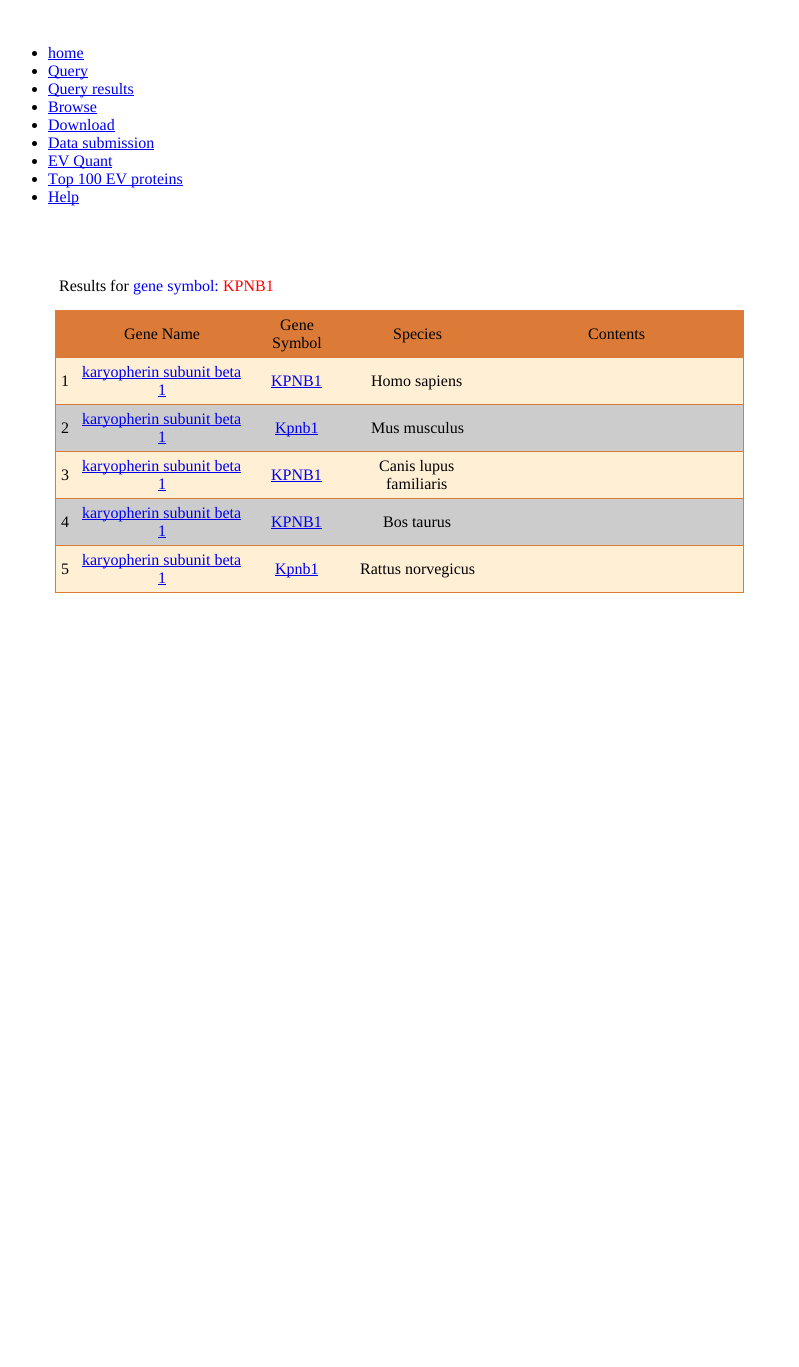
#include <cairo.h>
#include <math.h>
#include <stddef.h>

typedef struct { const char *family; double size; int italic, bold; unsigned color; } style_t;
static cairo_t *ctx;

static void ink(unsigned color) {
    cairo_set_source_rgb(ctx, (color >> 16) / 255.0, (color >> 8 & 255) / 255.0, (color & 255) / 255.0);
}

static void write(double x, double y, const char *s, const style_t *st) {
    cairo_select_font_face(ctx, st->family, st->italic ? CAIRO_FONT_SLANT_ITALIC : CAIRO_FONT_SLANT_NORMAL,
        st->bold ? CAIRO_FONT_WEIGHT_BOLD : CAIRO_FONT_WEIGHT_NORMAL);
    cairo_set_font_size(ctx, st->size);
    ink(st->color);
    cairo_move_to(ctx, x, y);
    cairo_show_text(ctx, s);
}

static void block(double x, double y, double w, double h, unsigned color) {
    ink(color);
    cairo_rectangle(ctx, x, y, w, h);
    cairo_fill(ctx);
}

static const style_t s1 = {"Liberation Serif", 16, 0, 0, 0x0000ee};
static const style_t s2 = {"Liberation Serif", 16, 0, 0, 0x000000};
static const style_t s3 = {"Liberation Serif", 16, 0, 0, 0x0000ff};
static const style_t s4 = {"Liberation Serif", 16, 0, 0, 0xff0000};

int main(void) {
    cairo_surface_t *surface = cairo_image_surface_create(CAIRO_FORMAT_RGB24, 799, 1367);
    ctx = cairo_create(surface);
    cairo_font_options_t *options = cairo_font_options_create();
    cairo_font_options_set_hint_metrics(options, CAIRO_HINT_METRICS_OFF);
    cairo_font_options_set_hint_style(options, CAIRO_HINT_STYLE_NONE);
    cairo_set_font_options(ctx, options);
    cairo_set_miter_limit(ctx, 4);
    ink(0xffffff);
    cairo_paint(ctx);
    ink(0x000000);
    cairo_arc(ctx, 34.5, 53.5, 2.5, 0, 2 * M_PI);
    cairo_fill(ctx);
    write(48, 58, "home", &s1);
    block(48, 59, 36, 1, 0x0000ee);
    ink(0x000000);
    cairo_new_path(ctx);
    cairo_arc(ctx, 34.5, 71.5, 2.5, 0, 2 * M_PI);
    cairo_fill(ctx);
    block(48, 77, 40, 1, 0x0000ee);
    write(48, 76, "Query", &s1);
    ink(0x000000);
    cairo_new_path(ctx);
    cairo_arc(ctx, 34.5, 89.5, 2.5, 0, 2 * M_PI);
    cairo_fill(ctx);
    block(48, 95, 86, 1, 0x0000ee);
    write(48, 94, "Query results", &s1);
    ink(0x000000);
    cairo_new_path(ctx);
    cairo_arc(ctx, 34.5, 107.5, 2.5, 0, 2 * M_PI);
    cairo_fill(ctx);
    write(48, 112, "Browse", &s1);
    block(48, 113, 49, 1, 0x0000ee);
    ink(0x000000);
    cairo_new_path(ctx);
    cairo_arc(ctx, 34.5, 125.5, 2.5, 0, 2 * M_PI);
    cairo_fill(ctx);
    write(48, 130, "Download", &s1);
    block(48, 131, 67, 1, 0x0000ee);
    ink(0x000000);
    cairo_new_path(ctx);
    cairo_arc(ctx, 34.5, 143.5, 2.5, 0, 2 * M_PI);
    cairo_fill(ctx);
    write(48, 148, "Data submission", &s1);
    block(48, 149, 106, 1, 0x0000ee);
    ink(0x000000);
    cairo_new_path(ctx);
    cairo_arc(ctx, 34.5, 161.5, 2.5, 0, 2 * M_PI);
    cairo_fill(ctx);
    block(48, 167, 64, 1, 0x0000ee);
    write(48, 166, "EV Quant", &s1);
    ink(0x000000);
    cairo_new_path(ctx);
    cairo_arc(ctx, 34.5, 179.5, 2.5, 0, 2 * M_PI);
    cairo_fill(ctx);
    block(48, 185, 135, 1, 0x0000ee);
    write(48, 184, "Top 100 EV proteins", &s1);
    ink(0x000000);
    cairo_new_path(ctx);
    cairo_arc(ctx, 34.5, 197.5, 2.5, 0, 2 * M_PI);
    cairo_fill(ctx);
    block(48, 203, 31, 1, 0x0000ee);
    write(48, 202, "Help", &s1);
    write(59, 291, "Results for", &s2);
    write(133, 291, "gene symbol:", &s3);
    write(223, 291, "KPNB1", &s4);
    block(55, 310, 689, 283, 0xdb7b37);
    write(124, 339, "Gene Name", &s2);
    write(280, 330, "Gene", &s2);
    write(272, 348, "Symbol", &s2);
    write(393, 339, "Species", &s2);
    write(588, 339, "Contents", &s2);
    block(56, 358, 687, 46, 0xffefd5);
    write(61, 386, "1", &s2);
    block(82, 378, 159, 1, 0x0000ee);
    write(82, 377, "karyopherin subunit beta", &s1);
    write(158, 395, "1", &s1);
    block(158, 396, 8, 1, 0x0000ee);
    write(271, 386, "KPNB1", &s1);
    block(271, 387, 51, 1, 0x0000ee);
    write(371, 386, "Homo sapiens", &s2);
    block(56, 405, 687, 46, 0xcccccc);
    write(61, 433, "2", &s2);
    block(82, 425, 159, 1, 0x0000ee);
    write(82, 424, "karyopherin subunit beta", &s1);
    write(158, 442, "1", &s1);
    block(158, 443, 8, 1, 0x0000ee);
    block(275, 434, 43, 1, 0x0000ee);
    write(275, 433, "Kpnb1", &s1);
    write(371, 433, "Mus musculus", &s2);
    block(56, 452, 687, 46, 0xffefd5);
    write(61, 480, "3", &s2);
    block(82, 472, 159, 1, 0x0000ee);
    write(82, 471, "karyopherin subunit beta", &s1);
    write(158, 489, "1", &s1);
    block(158, 490, 8, 1, 0x0000ee);
    write(271, 480, "KPNB1", &s1);
    block(271, 481, 51, 1, 0x0000ee);
    write(379, 471, "Canis lupus", &s2);
    write(386, 489, "familiaris", &s2);
    block(56, 499, 687, 46, 0xcccccc);
    write(61, 527, "4", &s2);
    block(82, 519, 159, 1, 0x0000ee);
    write(82, 518, "karyopherin subunit beta", &s1);
    write(158, 536, "1", &s1);
    block(158, 537, 8, 1, 0x0000ee);
    write(271, 527, "KPNB1", &s1);
    block(271, 528, 51, 1, 0x0000ee);
    write(383, 527, "Bos taurus", &s2);
    block(56, 546, 687, 46, 0xffefd5);
    write(61, 574, "5", &s2);
    block(82, 566, 159, 1, 0x0000ee);
    write(82, 565, "karyopherin subunit beta", &s1);
    write(158, 583, "1", &s1);
    block(158, 584, 8, 1, 0x0000ee);
    block(275, 575, 43, 1, 0x0000ee);
    write(275, 574, "Kpnb1", &s1);
    write(360, 574, "Rattus norvegicus", &s2);
    cairo_surface_write_to_png(surface, "screenshot.png");
    cairo_font_options_destroy(options);
    cairo_destroy(ctx);
    cairo_surface_destroy(surface);
    return 0;
}
